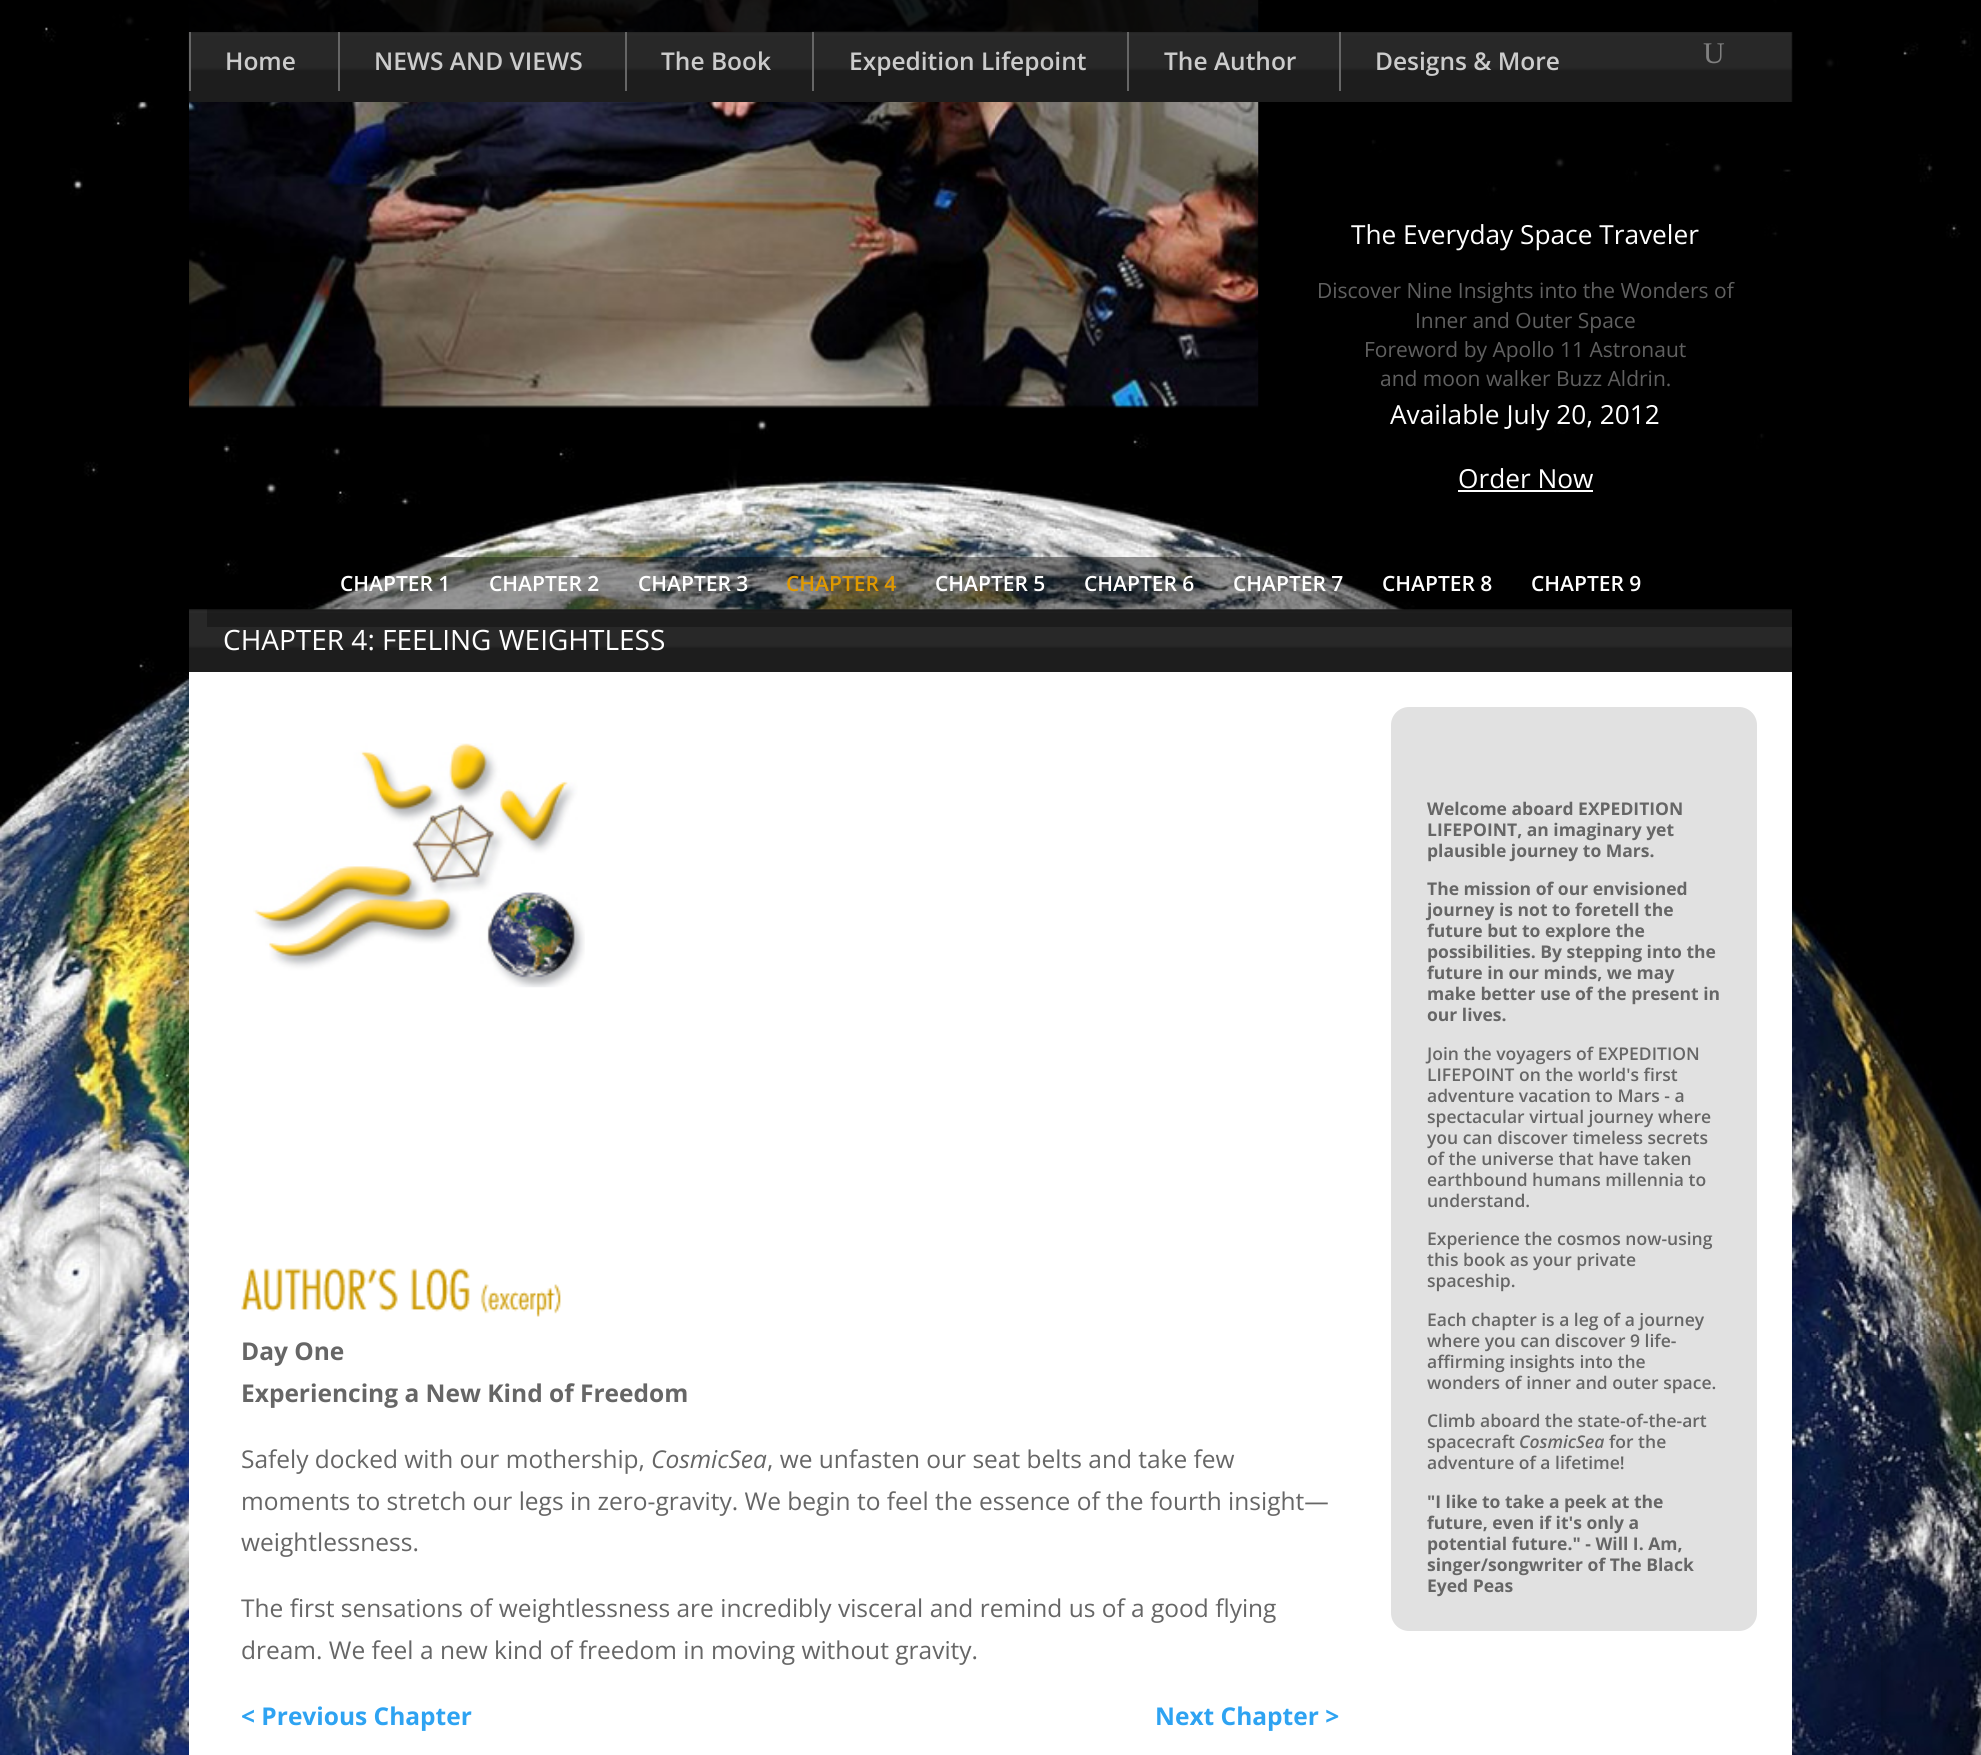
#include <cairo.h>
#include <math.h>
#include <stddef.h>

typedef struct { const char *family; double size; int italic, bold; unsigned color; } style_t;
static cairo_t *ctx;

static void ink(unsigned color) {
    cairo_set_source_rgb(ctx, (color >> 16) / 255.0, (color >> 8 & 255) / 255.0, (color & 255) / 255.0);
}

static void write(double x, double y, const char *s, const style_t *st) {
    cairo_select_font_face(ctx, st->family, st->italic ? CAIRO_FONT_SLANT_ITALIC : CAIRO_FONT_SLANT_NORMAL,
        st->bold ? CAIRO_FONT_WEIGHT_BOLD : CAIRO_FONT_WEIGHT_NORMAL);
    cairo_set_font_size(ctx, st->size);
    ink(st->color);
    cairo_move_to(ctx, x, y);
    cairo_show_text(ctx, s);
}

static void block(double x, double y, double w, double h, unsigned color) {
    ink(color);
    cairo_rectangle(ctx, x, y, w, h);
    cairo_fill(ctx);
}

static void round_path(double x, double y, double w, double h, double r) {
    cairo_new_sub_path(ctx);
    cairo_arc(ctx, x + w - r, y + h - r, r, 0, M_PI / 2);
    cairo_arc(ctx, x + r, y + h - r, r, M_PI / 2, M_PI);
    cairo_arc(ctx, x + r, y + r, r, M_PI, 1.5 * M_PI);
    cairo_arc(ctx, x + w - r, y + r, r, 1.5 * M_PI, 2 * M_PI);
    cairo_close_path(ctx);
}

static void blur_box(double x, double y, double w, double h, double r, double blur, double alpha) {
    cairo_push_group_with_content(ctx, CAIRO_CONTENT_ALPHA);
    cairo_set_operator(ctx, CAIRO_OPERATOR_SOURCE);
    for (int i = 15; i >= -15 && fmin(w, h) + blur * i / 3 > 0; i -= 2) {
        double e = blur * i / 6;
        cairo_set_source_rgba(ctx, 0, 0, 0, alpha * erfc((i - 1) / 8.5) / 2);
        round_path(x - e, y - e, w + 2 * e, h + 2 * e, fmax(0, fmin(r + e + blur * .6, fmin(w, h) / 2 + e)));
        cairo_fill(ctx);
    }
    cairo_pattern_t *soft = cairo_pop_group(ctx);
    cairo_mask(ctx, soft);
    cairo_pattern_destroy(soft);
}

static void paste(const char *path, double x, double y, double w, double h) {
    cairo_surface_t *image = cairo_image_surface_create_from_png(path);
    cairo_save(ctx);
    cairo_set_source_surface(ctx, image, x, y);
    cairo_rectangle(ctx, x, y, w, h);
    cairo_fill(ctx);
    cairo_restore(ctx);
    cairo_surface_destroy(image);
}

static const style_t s1 = {"Open Sans SemiBold", 24.5, 0, 0, 0xcccccc};
static const style_t s2 = {"Liberation Serif", 30, 0, 0, 0x808080};
static const style_t s3 = {"Open Sans", 26.25, 0, 0, 0xffffff};
static const style_t s4 = {"Open Sans", 21, 0, 0, 0x606060};
static const style_t s5 = {"Open Sans SemiBold", 21, 0, 0, 0xffffff};
static const style_t s6 = {"Open Sans SemiBold", 21, 0, 0, 0xe09900};
static const style_t s7 = {"Open Sans", 28, 0, 0, 0xffffff};
static const style_t s8 = {"Open Sans", 24.5, 0, 1, 0x666666};
static const style_t s9 = {"Open Sans", 24.5, 0, 0, 0x666666};
static const style_t s10 = {"Open Sans", 24.5, 1, 0, 0x666666};
static const style_t s11 = {"Open Sans", 24.5, 0, 1, 0x2ea3f2};
static const style_t s12 = {"Open Sans", 17.5, 0, 1, 0x666666};
static const style_t s13 = {"Open Sans SemiBold", 17.5, 0, 0, 0x666666};
static const style_t s14 = {"Open Sans SemiBold", 17.5, 1, 0, 0x666666};

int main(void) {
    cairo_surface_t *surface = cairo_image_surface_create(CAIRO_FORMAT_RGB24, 1981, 1755);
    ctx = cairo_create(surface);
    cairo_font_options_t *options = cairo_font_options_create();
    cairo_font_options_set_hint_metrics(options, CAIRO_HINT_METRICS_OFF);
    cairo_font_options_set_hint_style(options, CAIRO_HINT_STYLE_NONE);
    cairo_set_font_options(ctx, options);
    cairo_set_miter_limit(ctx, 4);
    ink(0xffffff);
    cairo_paint(ctx);
    paste("pic1.png", 0, 0, 1981, 1755);
    cairo_save(ctx);
    cairo_set_fill_rule(ctx, CAIRO_FILL_RULE_EVEN_ODD);
    cairo_new_path(ctx);
    cairo_move_to(ctx, 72, 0);
    cairo_line_to(ctx, 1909, 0);
    cairo_line_to(ctx, 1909, 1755);
    cairo_line_to(ctx, 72, 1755);
    cairo_close_path(ctx);
    cairo_move_to(ctx, 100, -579);
    cairo_line_to(ctx, 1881, -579);
    cairo_line_to(ctx, 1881, 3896);
    cairo_line_to(ctx, 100, 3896);
    cairo_close_path(ctx);
    cairo_clip(ctx);
    ink(0x000000);
    blur_box(100, -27, 1781, 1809, 0, 9, 0.2);
    cairo_restore(ctx);
    paste("pic4.png", 189, 0, 1070, 408);
    cairo_set_source_rgba(ctx, 0, 0, 0, 0.8);
    cairo_rectangle(ctx, 1258, 0, 534, 448);
    cairo_fill(ctx);
    cairo_set_source_rgba(ctx, 0, 0, 0, 0.9);
    cairo_rectangle(ctx, 123, 0, 1714, 102);
    cairo_fill(ctx);
    paste("pic2.png", 188, 32, 1605, 70);
    block(189, 32, 2, 59, 0x666666);
    write(225, 70, "Home", &s1);
    block(338, 32, 2, 59, 0x666666);
    write(374, 70, "NEWS AND VIEWS", &s1);
    block(625, 32, 2, 59, 0x666666);
    write(661, 70, "The Book", &s1);
    paste("pic3.png", 812, 31, 310, 1);
    block(812, 32, 2, 59, 0x666666);
    write(849, 70, "Expedition Lifepoint", &s1);
    block(1127, 32, 2, 59, 0x666666);
    write(1164, 70, "The Author", &s1);
    block(1339, 32, 2, 59, 0x666666);
    write(1375, 70, "Designs & More", &s1);
    write(1703, 63, "U", &s2);
    write(1351, 244, "The Everyday Space Traveler", &s3);
    write(1317, 298, "Discover Nine Insights into the Wonders of", &s4);
    write(1415, 328, "Inner and Outer Space", &s4);
    write(1364, 357, "Foreword by Apollo 11 Astronaut", &s4);
    write(1380, 386, "and moon walker Buzz Aldrin.", &s4);
    write(1390, 424, "Available July 20, 2012", &s3);
    write(1458, 488, "Order Now", &s3);
    block(1458, 490, 135, 2, 0xffffff);
    cairo_set_source_rgba(ctx, 0, 0, 0, 0.41);
    cairo_rectangle(ctx, 226, 557, 1188, 52);
    cairo_fill(ctx);
    paste("pic5.png", 189, 609, 1603, 63);
    cairo_set_source_rgba(ctx, 0, 0, 0, 0.3);
    cairo_new_path(ctx);
    cairo_move_to(ctx, 207, 609);
    cairo_line_to(ctx, 207, 627);
    cairo_line_to(ctx, 1810, 627);
    cairo_line_to(ctx, 1810, 574);
    cairo_line_to(ctx, 1792, 574);
    cairo_line_to(ctx, 1792, 609);
    cairo_close_path(ctx);
    cairo_fill(ctx);
    write(340, 591, "CHAPTER 1", &s5);
    write(489, 591, "CHAPTER 2", &s5);
    write(638, 591, "CHAPTER 3", &s5);
    write(786, 591, "CHAPTER 4", &s6);
    write(935, 591, "CHAPTER 5", &s5);
    write(1084, 591, "CHAPTER 6", &s5);
    write(1233, 591, "CHAPTER 7", &s5);
    write(1382, 591, "CHAPTER 8", &s5);
    write(1531, 591, "CHAPTER 9", &s5);
    write(223, 650, "CHAPTER 4: FEELING WEIGHTLESS", &s7);
    block(189, 672, 1603, 1083, 0xffffff);
    paste("pic6.png", 253, 743, 332, 245);
    paste("pic7.png", 241, 1268, 320, 49);
    write(241, 1360, "Day One", &s8);
    write(241, 1402, "Experiencing a New Kind of Freedom", &s8);
    write(241, 1468, "Safely docked with our mothership,", &s9);
    write(651, 1468, "CosmicSea", &s10);
    write(767, 1468, ", we unfasten our seat belts and take few", &s9);
    write(241, 1510, "moments to stretch our legs in zero-gravity. We begin to feel the essence of the fourth insight—", &s9);
    write(241, 1551, "weightlessness.", &s9);
    write(241, 1617, "The first sensations of weightlessness are incredibly visceral and remind us of a good flying", &s9);
    write(241, 1659, "dream. We feel a new kind of freedom in moving without gravity.", &s9);
    write(241, 1725, "< Previous Chapter", &s11);
    write(1155, 1725, "Next Chapter >", &s11);
    ink(0xe1e1e1);
    round_path(1391, 707, 366, 924, 18);
    cairo_fill(ctx);
    write(1427, 815, "Welcome aboard EXPEDITION", &s12);
    write(1427, 836, "LIFEPOINT, an imaginary yet", &s12);
    write(1427, 857, "plausible journey to Mars.", &s12);
    write(1427, 895, "The mission of our envisioned", &s12);
    write(1427, 916, "journey is not to foretell the", &s12);
    write(1427, 937, "future but to explore the", &s12);
    write(1427, 958, "possibilities. By stepping into the", &s12);
    write(1427, 979, "future in our minds, we may", &s12);
    write(1427, 1000, "make better use of the present in", &s12);
    write(1427, 1021, "our lives.", &s12);
    write(1427, 1060, "Join the voyagers of EXPEDITION", &s13);
    write(1427, 1081, "LIFEPOINT on the world's first", &s13);
    write(1427, 1102, "adventure vacation to Mars - a", &s13);
    write(1427, 1123, "spectacular virtual journey where", &s13);
    write(1427, 1144, "you can discover timeless secrets", &s13);
    write(1427, 1165, "of the universe that have taken", &s13);
    write(1427, 1186, "earthbound humans millennia to", &s13);
    write(1427, 1207, "understand.", &s13);
    write(1427, 1245, "Experience the cosmos now-using", &s13);
    write(1427, 1266, "this book as your private", &s13);
    write(1427, 1287, "spaceship.", &s13);
    write(1427, 1326, "Each chapter is a leg of a journey", &s13);
    write(1427, 1347, "where you can discover 9 life-", &s13);
    write(1427, 1368, "affirming insights into the", &s13);
    write(1427, 1389, "wonders of inner and outer space.", &s13);
    write(1427, 1427, "Climb aboard the state-of-the-art", &s13);
    write(1427, 1448, "spacecraft", &s13);
    write(1519, 1448, "CosmicSea", &s14);
    write(1609, 1448, "for the", &s13);
    write(1427, 1469, "adventure of a lifetime!", &s13);
    write(1427, 1508, "\"I like to take a peek at the", &s12);
    write(1427, 1529, "future, even if it's only a", &s12);
    write(1427, 1550, "potential future.\" - Will I. Am,", &s12);
    write(1427, 1571, "singer/songwriter of The Black", &s12);
    write(1427, 1592, "Eyed Peas", &s12);
    cairo_surface_write_to_png(surface, "screenshot.png");
    cairo_font_options_destroy(options);
    cairo_destroy(ctx);
    cairo_surface_destroy(surface);
    return 0;
}
